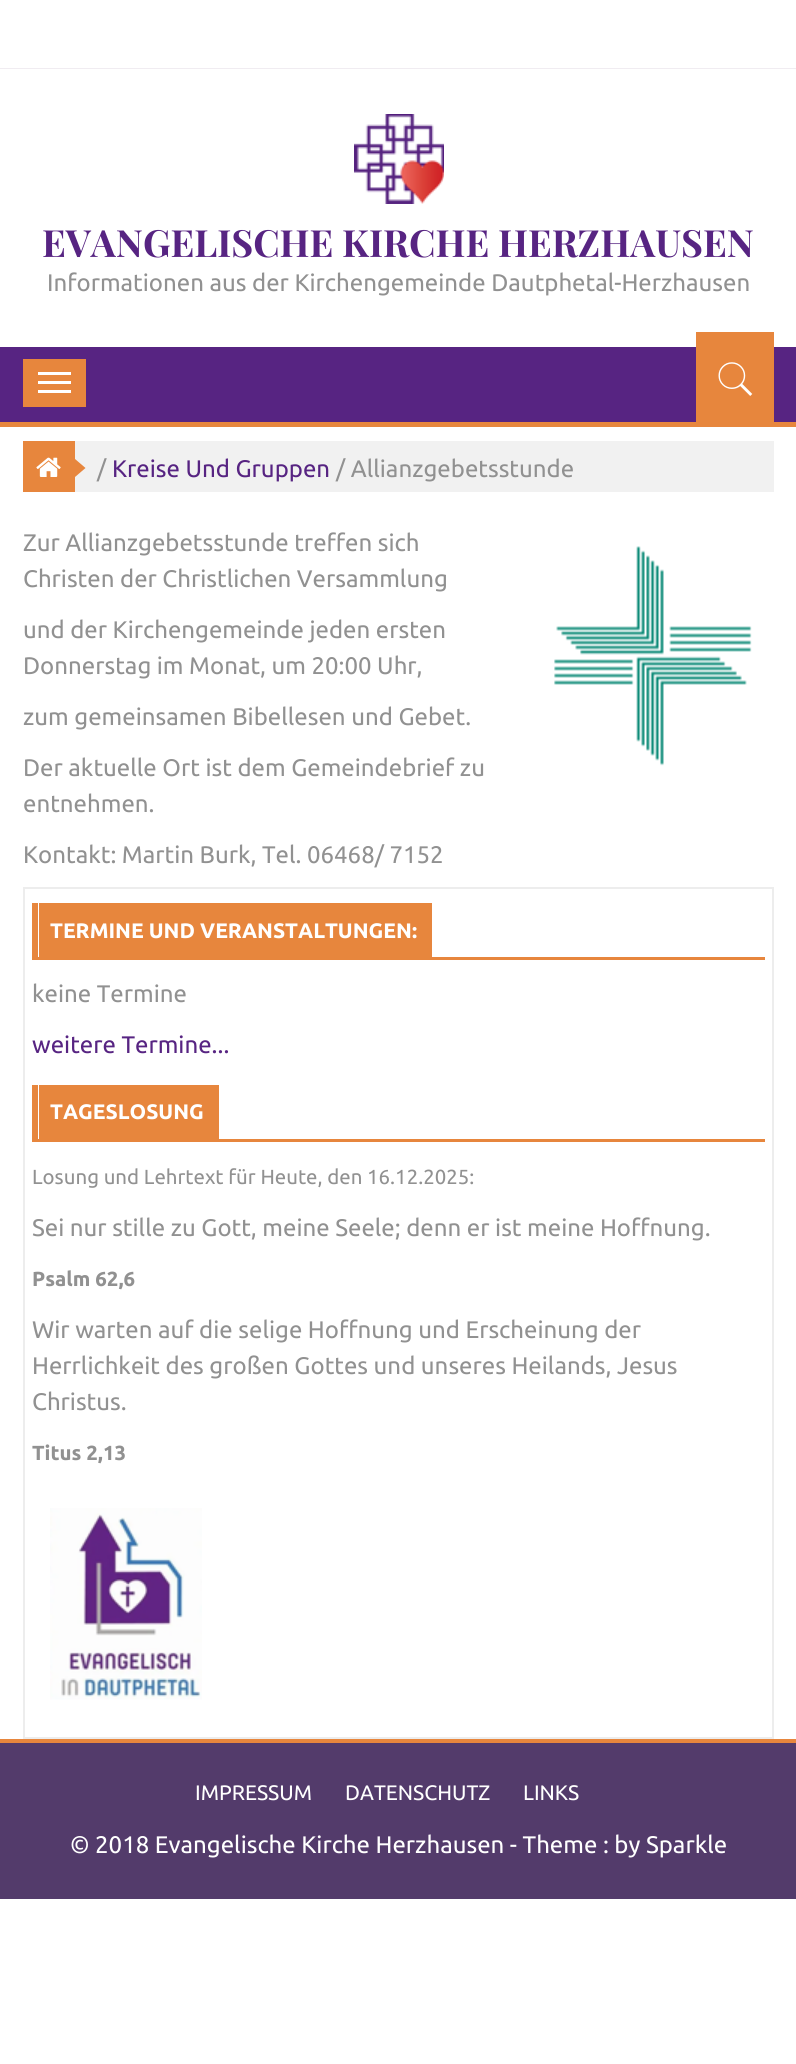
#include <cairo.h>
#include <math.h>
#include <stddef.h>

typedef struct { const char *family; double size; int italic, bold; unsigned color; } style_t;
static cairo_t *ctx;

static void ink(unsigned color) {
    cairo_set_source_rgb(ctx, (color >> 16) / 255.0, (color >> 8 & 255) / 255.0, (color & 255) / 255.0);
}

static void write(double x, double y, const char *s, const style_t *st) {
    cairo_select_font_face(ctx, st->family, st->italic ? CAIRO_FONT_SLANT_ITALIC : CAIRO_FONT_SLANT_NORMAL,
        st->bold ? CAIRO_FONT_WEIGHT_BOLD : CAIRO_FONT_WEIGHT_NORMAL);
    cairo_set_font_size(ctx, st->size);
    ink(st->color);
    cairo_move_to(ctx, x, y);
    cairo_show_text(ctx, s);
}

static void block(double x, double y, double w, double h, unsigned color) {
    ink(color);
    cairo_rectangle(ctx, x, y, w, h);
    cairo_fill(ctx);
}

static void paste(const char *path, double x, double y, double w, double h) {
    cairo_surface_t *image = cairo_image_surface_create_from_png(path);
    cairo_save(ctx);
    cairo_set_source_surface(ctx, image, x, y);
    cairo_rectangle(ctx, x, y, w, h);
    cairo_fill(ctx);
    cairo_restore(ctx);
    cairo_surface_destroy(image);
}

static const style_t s1 = {"Playfair Display", 37.5, 0, 1, 0x572482};
static const style_t s2 = {"Ubuntu", 24, 0, 0, 0x919191};
static const style_t s3 = {"Ubuntu", 24, 0, 0, 0x572482};
static const style_t s4 = {"Ubuntu", 21, 0, 1, 0xffffff};
static const style_t s5 = {"Ubuntu", 20.4, 0, 0, 0x919191};
static const style_t s6 = {"Ubuntu", 20.4, 0, 1, 0x919191};
static const style_t s7 = {"Ubuntu", 21, 0, 0, 0xffffff};
static const style_t s8 = {"Ubuntu", 24, 0, 0, 0xffffff};

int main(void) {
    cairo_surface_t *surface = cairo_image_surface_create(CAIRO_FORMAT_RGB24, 796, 2064);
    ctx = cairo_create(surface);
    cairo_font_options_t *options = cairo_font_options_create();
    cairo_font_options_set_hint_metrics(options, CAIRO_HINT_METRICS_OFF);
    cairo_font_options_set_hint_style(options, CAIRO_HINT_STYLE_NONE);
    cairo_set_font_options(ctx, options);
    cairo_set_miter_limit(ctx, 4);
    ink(0xffffff);
    cairo_paint(ctx);
    block(0, 68, 796, 1, 0xf0ecf1);
    paste("pic1.png", 354, 114, 90, 90);
    write(42, 257, "EVANGELISCHE KIRCHE HERZHAUSEN", &s1);
    write(47, 291, "Informationen aus der Kirchengemeinde Dautphetal-Herzhausen", &s2);
    block(0, 347, 796, 75, 0x572482);
    block(0, 422, 796, 5, 0xe7863d);
    block(23, 359, 63, 48, 0xe7863d);
    block(38, 372, 33, 3, 0xffffff);
    block(38, 381, 33, 3, 0xffffff);
    block(38, 390, 33, 3, 0xffffff);
    block(696, 332, 78, 90, 0xe7863d);
    paste("pic2.png", 718, 362, 35, 34);
    block(75, 441, 699, 51, 0xf1f1f1);
    block(23, 441, 52, 51, 0xe7863d);
    paste("pic3.png", 36, 457, 25, 20);
    cairo_new_path(ctx);
    cairo_move_to(ctx, 75, 477);
    cairo_line_to(ctx, 75, 459);
    cairo_line_to(ctx, 85.5, 468);
    cairo_close_path(ctx);
    cairo_fill(ctx);
    write(97, 477, "/", &s2);
    write(112, 477, "Kreise Und Gruppen", &s3);
    write(336, 477, "/ Allianzgebetsstunde", &s2);
    write(23, 551, "Zur Allianzgebetsstunde treffen sich", &s2);
    paste("pic4.png", 554, 546, 198, 220);
    write(23, 587, "Christen der Christlichen Versammlung", &s2);
    write(23, 638, "und der Kirchengemeinde jeden ersten", &s2);
    write(23, 674, "Donnerstag im Monat, um 20:00 Uhr,", &s2);
    write(23, 725, "zum gemeinsamen Bibellesen und Gebet.", &s2);
    write(23, 776, "Der aktuelle Ort ist dem Gemeindebrief zu", &s2);
    write(23, 812, "entnehmen.", &s2);
    write(23, 863, "Kontakt: Martin Burk, Tel. 06468/ 7152", &s2);
    cairo_rectangle(ctx, 24, 888, 749, 850);
    ink(0xededed);
    cairo_stroke(ctx);
    block(32, 957, 733, 3, 0xe7863d);
    block(39, 903, 393, 54, 0xe7863d);
    block(32, 903, 6, 54, 0xe7863d);
    write(50, 938, "TERMINE UND VERANSTALTUNGEN:", &s4);
    write(32, 1002, "keine Termine", &s2);
    write(32, 1053, "weitere Termine...", &s3);
    block(32, 1139, 733, 3, 0xe7863d);
    block(39, 1085, 180, 54, 0xe7863d);
    block(32, 1085, 6, 54, 0xe7863d);
    write(50, 1119, "TAGESLOSUNG", &s4);
    write(32, 1184, "Losung und Lehrtext für Heute, den 16.12.2025:", &s5);
    write(32, 1236, "Sei nur stille zu Gott, meine Seele; denn er ist meine Hoffnung.", &s2);
    write(32, 1286, "Psalm 62,6", &s6);
    write(32, 1338, "Wir warten auf die selige Hoffnung und Erscheinung der", &s2);
    write(32, 1374, "Herrlichkeit des großen Gottes und unseres Heilands, Jesus", &s2);
    write(32, 1410, "Christus.", &s2);
    write(32, 1460, "Titus 2,13", &s6);
    paste("pic5.png", 50, 1508, 152, 192);
    block(0, 1739, 796, 4, 0xe7863d);
    block(0, 1743, 796, 156, 0x533b6b);
    write(195, 1800, "IMPRESSUM", &s7);
    write(345, 1800, "DATENSCHUTZ", &s7);
    write(523, 1800, "LINKS", &s7);
    write(70, 1853, "© 2018 Evangelische Kirche Herzhausen - Theme : by Sparkle", &s8);
    cairo_surface_write_to_png(surface, "screenshot.png");
    cairo_font_options_destroy(options);
    cairo_destroy(ctx);
    cairo_surface_destroy(surface);
    return 0;
}
